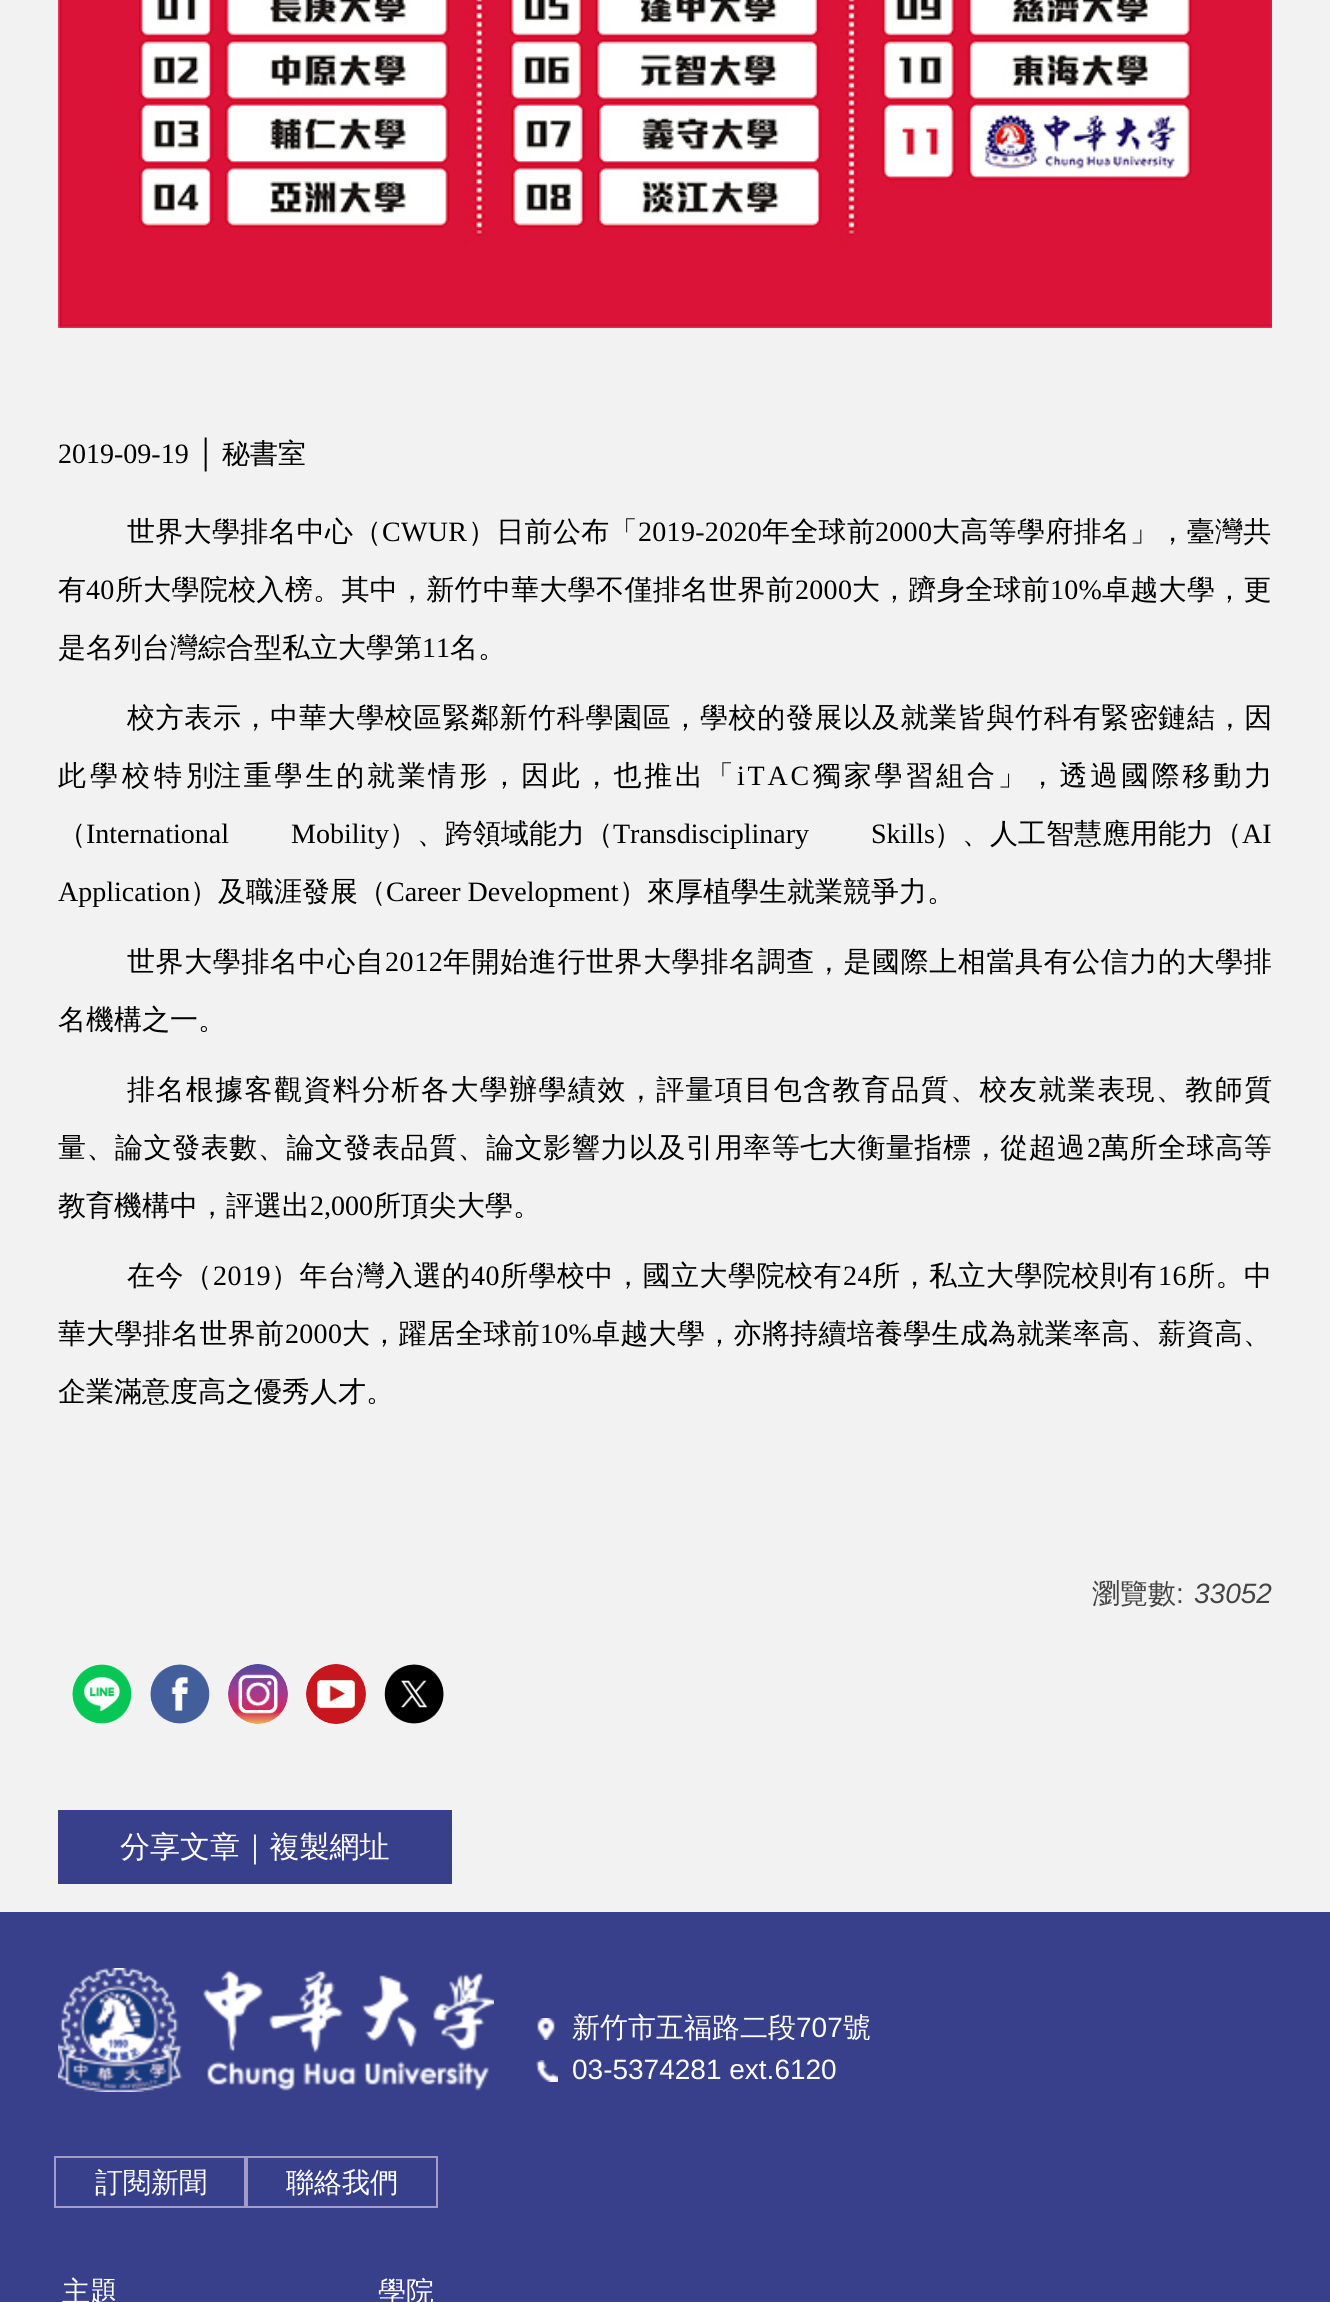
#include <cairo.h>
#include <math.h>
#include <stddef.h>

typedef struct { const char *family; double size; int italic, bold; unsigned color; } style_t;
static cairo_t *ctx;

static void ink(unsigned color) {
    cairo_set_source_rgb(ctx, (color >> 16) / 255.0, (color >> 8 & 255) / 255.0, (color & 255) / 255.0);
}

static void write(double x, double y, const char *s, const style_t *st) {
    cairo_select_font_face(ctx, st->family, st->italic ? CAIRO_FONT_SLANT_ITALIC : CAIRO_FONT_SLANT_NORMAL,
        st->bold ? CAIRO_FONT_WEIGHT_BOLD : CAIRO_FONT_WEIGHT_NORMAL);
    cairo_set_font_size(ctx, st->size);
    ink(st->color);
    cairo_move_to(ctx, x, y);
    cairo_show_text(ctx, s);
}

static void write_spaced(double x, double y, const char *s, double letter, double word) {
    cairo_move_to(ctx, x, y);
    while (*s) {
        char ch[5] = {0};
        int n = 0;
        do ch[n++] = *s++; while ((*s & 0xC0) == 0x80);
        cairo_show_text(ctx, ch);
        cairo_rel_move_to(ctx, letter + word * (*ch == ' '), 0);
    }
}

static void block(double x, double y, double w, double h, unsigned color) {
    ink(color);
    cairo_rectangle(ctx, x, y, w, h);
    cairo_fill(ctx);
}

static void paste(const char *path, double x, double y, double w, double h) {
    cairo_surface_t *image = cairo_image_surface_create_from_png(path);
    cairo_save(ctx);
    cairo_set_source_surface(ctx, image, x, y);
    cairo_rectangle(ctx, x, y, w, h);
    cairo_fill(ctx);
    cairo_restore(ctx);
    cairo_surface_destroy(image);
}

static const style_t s1 = {"Liberation Serif", 28, 0, 0, 0x000000};
static const style_t s2 = {"WenQuanYi Zen Hei Medium", 28, 0, 0, 0x000000};
static const style_t s3 = {"WenQuanYi Zen Hei Medium", 28, 0, 0, 0x444444};
static const style_t s4 = {"Liberation Sans", 28, 0, 0, 0x444444};
static const style_t s5 = {"Liberation Sans", 28, 1, 0, 0x444444};
static const style_t s6 = {"WenQuanYi Zen Hei Medium", 30, 0, 0, 0xffffff};
static const style_t s7 = {"WenQuanYi Zen Hei Medium", 28, 0, 0, 0xffffff};
static const style_t s8 = {"Liberation Sans", 28, 0, 0, 0xffffff};

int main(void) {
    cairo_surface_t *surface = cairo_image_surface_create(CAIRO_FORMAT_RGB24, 1330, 2302);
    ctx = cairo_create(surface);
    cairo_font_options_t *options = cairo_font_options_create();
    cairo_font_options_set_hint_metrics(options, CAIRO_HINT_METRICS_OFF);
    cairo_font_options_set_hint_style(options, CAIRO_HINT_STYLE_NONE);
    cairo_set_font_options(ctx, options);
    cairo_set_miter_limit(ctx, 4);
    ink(0xf2f2f2);
    cairo_paint(ctx);
    paste("pic1.png", 58, 0, 1214, 328);
    write(58, 463, "2019-09-19 │", &s1);
    write(222, 463, "秘書室", &s2);
    write_spaced(127, 541, "世界大學排名中心（", 0.3, 0);
    cairo_select_font_face(ctx, "Liberation Serif", CAIRO_FONT_SLANT_NORMAL, CAIRO_FONT_WEIGHT_NORMAL);
    write_spaced(382, 541, "CWUR", 0.3, 0);
    cairo_select_font_face(ctx, "WenQuanYi Zen Hei Medium", CAIRO_FONT_SLANT_NORMAL, CAIRO_FONT_WEIGHT_NORMAL);
    write_spaced(468, 541, "）日前公布「", 0.3, 0);
    cairo_select_font_face(ctx, "Liberation Serif", CAIRO_FONT_SLANT_NORMAL, CAIRO_FONT_WEIGHT_NORMAL);
    write_spaced(638, 541, "2019-2020", 0.3, 0);
    cairo_select_font_face(ctx, "WenQuanYi Zen Hei Medium", CAIRO_FONT_SLANT_NORMAL, CAIRO_FONT_WEIGHT_NORMAL);
    write_spaced(762, 541, "年全球前", 0.3, 0);
    cairo_select_font_face(ctx, "Liberation Serif", CAIRO_FONT_SLANT_NORMAL, CAIRO_FONT_WEIGHT_NORMAL);
    write_spaced(875, 541, "2000", 0.3, 0);
    cairo_select_font_face(ctx, "WenQuanYi Zen Hei Medium", CAIRO_FONT_SLANT_NORMAL, CAIRO_FONT_WEIGHT_NORMAL);
    write_spaced(932, 541, "大高等學府排名」，臺灣共", 0.3, 0);
    write_spaced(58, 599, "有", 0.3, 0);
    cairo_select_font_face(ctx, "Liberation Serif", CAIRO_FONT_SLANT_NORMAL, CAIRO_FONT_WEIGHT_NORMAL);
    write_spaced(86, 599, "40", 0.3, 0);
    cairo_select_font_face(ctx, "WenQuanYi Zen Hei Medium", CAIRO_FONT_SLANT_NORMAL, CAIRO_FONT_WEIGHT_NORMAL);
    write_spaced(115, 599, "所大學院校入榜。其中，新竹中華大學不僅排名世界前", 0.3, 0);
    cairo_select_font_face(ctx, "Liberation Serif", CAIRO_FONT_SLANT_NORMAL, CAIRO_FONT_WEIGHT_NORMAL);
    write_spaced(795, 599, "2000", 0.3, 0);
    cairo_select_font_face(ctx, "WenQuanYi Zen Hei Medium", CAIRO_FONT_SLANT_NORMAL, CAIRO_FONT_WEIGHT_NORMAL);
    write_spaced(852, 599, "大，躋身全球前", 0.3, 0);
    cairo_select_font_face(ctx, "Liberation Serif", CAIRO_FONT_SLANT_NORMAL, CAIRO_FONT_WEIGHT_NORMAL);
    write_spaced(1050, 599, "10%", 0.3, 0);
    cairo_select_font_face(ctx, "WenQuanYi Zen Hei Medium", CAIRO_FONT_SLANT_NORMAL, CAIRO_FONT_WEIGHT_NORMAL);
    write_spaced(1102, 599, "卓越大學，更", 0.3, 0);
    write(58, 657, "是名列台灣綜合型私立大學第", &s2);
    write(422, 657, "11", &s1);
    write(450, 657, "名。", &s2);
    write_spaced(127, 727, "校方表示，中華大學校區緊鄰新竹科學園區，學校的發展以及就業皆與竹科有緊密鏈結，因", 0.65, 0);
    write_spaced(58, 785, "此學校特別", 4, 0);
    write_spaced(213, 785, "注重學生的就業情形，因此，也推出「", 2.8, 0);
    cairo_select_font_face(ctx, "Liberation Serif", CAIRO_FONT_SLANT_NORMAL, CAIRO_FONT_WEIGHT_NORMAL);
    write_spaced(737, 785, "iTAC", 2.8, 0);
    cairo_select_font_face(ctx, "WenQuanYi Zen Hei Medium", CAIRO_FONT_SLANT_NORMAL, CAIRO_FONT_WEIGHT_NORMAL);
    write_spaced(813, 785, "獨家學習組合」，透過國際移動力", 2.8, 0);
    write(58, 843, "（", &s2);
    cairo_select_font_face(ctx, "Liberation Serif", CAIRO_FONT_SLANT_NORMAL, CAIRO_FONT_WEIGHT_NORMAL);
    write_spaced(86, 843, "International Mobility", 0, 55);
    write(389, 843, "）、跨領域能力（", &s2);
    cairo_select_font_face(ctx, "Liberation Serif", CAIRO_FONT_SLANT_NORMAL, CAIRO_FONT_WEIGHT_NORMAL);
    write_spaced(613, 843, "Transdisciplinary Skills", 0, 55);
    write(934, 843, "）、人工智慧應用能力（", &s2);
    write(1242, 843, "AI", &s1);
    write(58, 901, "Application", &s1);
    write(190, 901, "）及職涯發展（", &s2);
    write(386, 901, "Career Development", &s1);
    write(619, 901, "）來厚植學生就業競爭力。", &s2);
    write_spaced(127, 971, "世界大學排名中心自", 0.6, 0);
    cairo_select_font_face(ctx, "Liberation Serif", CAIRO_FONT_SLANT_NORMAL, CAIRO_FONT_WEIGHT_NORMAL);
    write_spaced(385, 971, "2012", 0.6, 0);
    cairo_select_font_face(ctx, "WenQuanYi Zen Hei Medium", CAIRO_FONT_SLANT_NORMAL, CAIRO_FONT_WEIGHT_NORMAL);
    write_spaced(443, 971, "年開始進行世界大學排名調查，是國際上相當具有公信力的大學排", 0.6, 0);
    write(58, 1029, "名機構之一。", &s2);
    write_spaced(127, 1099, "排名根據客觀資料分析各大學辦學績效，評量項目包含教育品質、校友就業表現、教師質", 1.4, 0);
    write_spaced(58, 1157, "量、論文發表數、論文發表品質、論文影響力以及引用率等七大衡量指標，從超過", 0.55, 0);
    cairo_select_font_face(ctx, "Liberation Serif", CAIRO_FONT_SLANT_NORMAL, CAIRO_FONT_WEIGHT_NORMAL);
    write_spaced(1087, 1157, "2", 0.55, 0);
    cairo_select_font_face(ctx, "WenQuanYi Zen Hei Medium", CAIRO_FONT_SLANT_NORMAL, CAIRO_FONT_WEIGHT_NORMAL);
    write_spaced(1101, 1157, "萬所全球高等", 0.55, 0);
    write(58, 1215, "教育機構中，評選出", &s2);
    write(310, 1215, "2,000", &s1);
    write(373, 1215, "所頂尖大學。", &s2);
    write_spaced(127, 1285, "在今（", 0.5, 0);
    cairo_select_font_face(ctx, "Liberation Serif", CAIRO_FONT_SLANT_NORMAL, CAIRO_FONT_WEIGHT_NORMAL);
    write_spaced(213, 1285, "2019", 0.5, 0);
    cairo_select_font_face(ctx, "WenQuanYi Zen Hei Medium", CAIRO_FONT_SLANT_NORMAL, CAIRO_FONT_WEIGHT_NORMAL);
    write_spaced(271, 1285, "）年台灣入選的", 0.5, 0);
    cairo_select_font_face(ctx, "Liberation Serif", CAIRO_FONT_SLANT_NORMAL, CAIRO_FONT_WEIGHT_NORMAL);
    write_spaced(471, 1285, "40", 0.5, 0);
    cairo_select_font_face(ctx, "WenQuanYi Zen Hei Medium", CAIRO_FONT_SLANT_NORMAL, CAIRO_FONT_WEIGHT_NORMAL);
    write_spaced(500, 1285, "所學校中，國立大學院校有", 0.5, 0);
    cairo_select_font_face(ctx, "Liberation Serif", CAIRO_FONT_SLANT_NORMAL, CAIRO_FONT_WEIGHT_NORMAL);
    write_spaced(843, 1285, "24", 0.5, 0);
    cairo_select_font_face(ctx, "WenQuanYi Zen Hei Medium", CAIRO_FONT_SLANT_NORMAL, CAIRO_FONT_WEIGHT_NORMAL);
    write_spaced(872, 1285, "所，私立大學院校則有", 0.5, 0);
    cairo_select_font_face(ctx, "Liberation Serif", CAIRO_FONT_SLANT_NORMAL, CAIRO_FONT_WEIGHT_NORMAL);
    write_spaced(1158, 1285, "16", 0.5, 0);
    cairo_select_font_face(ctx, "WenQuanYi Zen Hei Medium", CAIRO_FONT_SLANT_NORMAL, CAIRO_FONT_WEIGHT_NORMAL);
    write_spaced(1187, 1285, "所。中", 0.5, 0);
    write_spaced(58, 1343, "華大學排名世界前", 0.3, 0);
    cairo_select_font_face(ctx, "Liberation Serif", CAIRO_FONT_SLANT_NORMAL, CAIRO_FONT_WEIGHT_NORMAL);
    write_spaced(285, 1343, "2000", 0.3, 0);
    cairo_select_font_face(ctx, "WenQuanYi Zen Hei Medium", CAIRO_FONT_SLANT_NORMAL, CAIRO_FONT_WEIGHT_NORMAL);
    write_spaced(342, 1343, "大，躍居全球前", 0.3, 0);
    cairo_select_font_face(ctx, "Liberation Serif", CAIRO_FONT_SLANT_NORMAL, CAIRO_FONT_WEIGHT_NORMAL);
    write_spaced(540, 1343, "10%", 0.3, 0);
    cairo_select_font_face(ctx, "WenQuanYi Zen Hei Medium", CAIRO_FONT_SLANT_NORMAL, CAIRO_FONT_WEIGHT_NORMAL);
    write_spaced(592, 1343, "卓越大學，亦將持續培養學生成為就業率高、薪資高、", 0.3, 0);
    write(58, 1401, "企業滿意度高之優秀人才。", &s2);
    write(1092, 1603, "瀏覽數", &s3);
    write(1176, 1603, ":", &s4);
    write(1194, 1603, "33052", &s5);
    ink(0xffffff);
    cairo_new_path(ctx);
    cairo_arc(ctx, 102, 1694, 30, 0, 2 * M_PI);
    cairo_fill(ctx);
    paste("pic2.png", 72, 1664, 60, 60);
    cairo_arc(ctx, 180, 1694, 30, 0, 2 * M_PI);
    cairo_fill(ctx);
    paste("pic3.png", 150, 1664, 60, 60);
    cairo_arc(ctx, 258, 1694, 30, 0, 2 * M_PI);
    cairo_fill(ctx);
    paste("pic4.png", 228, 1664, 60, 60);
    cairo_arc(ctx, 336, 1694, 30, 0, 2 * M_PI);
    cairo_fill(ctx);
    paste("pic5.png", 306, 1664, 60, 60);
    cairo_arc(ctx, 414, 1694, 30, 0, 2 * M_PI);
    cairo_fill(ctx);
    paste("pic6.png", 384, 1664, 60, 60);
    block(58, 1810, 394, 74, 0x38408b);
    write(120, 1857, "分享文章｜複製網址", &s6);
    block(0, 1912, 1330, 390, 0x38408b);
    paste("pic7.png", 58, 1968, 436, 124);
    paste("pic8.png", 537, 2018, 18, 22);
    write(572, 2037, "新竹市五福路二段", &s7);
    write(796, 2037, "707", &s8);
    write(843, 2037, "號", &s7);
    paste("pic9.png", 536, 2060, 22, 22);
    write(572, 2079, "03-5374281 ext.6120", &s8);
    cairo_rectangle(ctx, 55, 2157, 192, 50);
    ink(0xa49cc4);
    cairo_stroke(ctx);
    write(95, 2192, "訂閱新聞", &s7);
    cairo_rectangle(ctx, 245, 2157, 192, 50);
    ink(0xa49cc4);
    cairo_stroke(ctx);
    write(286, 2192, "聯絡我們", &s7);
    write(62, 2301, "主題", &s7);
    write(378, 2301, "學院", &s7);
    cairo_surface_write_to_png(surface, "screenshot.png");
    cairo_font_options_destroy(options);
    cairo_destroy(ctx);
    cairo_surface_destroy(surface);
    return 0;
}
